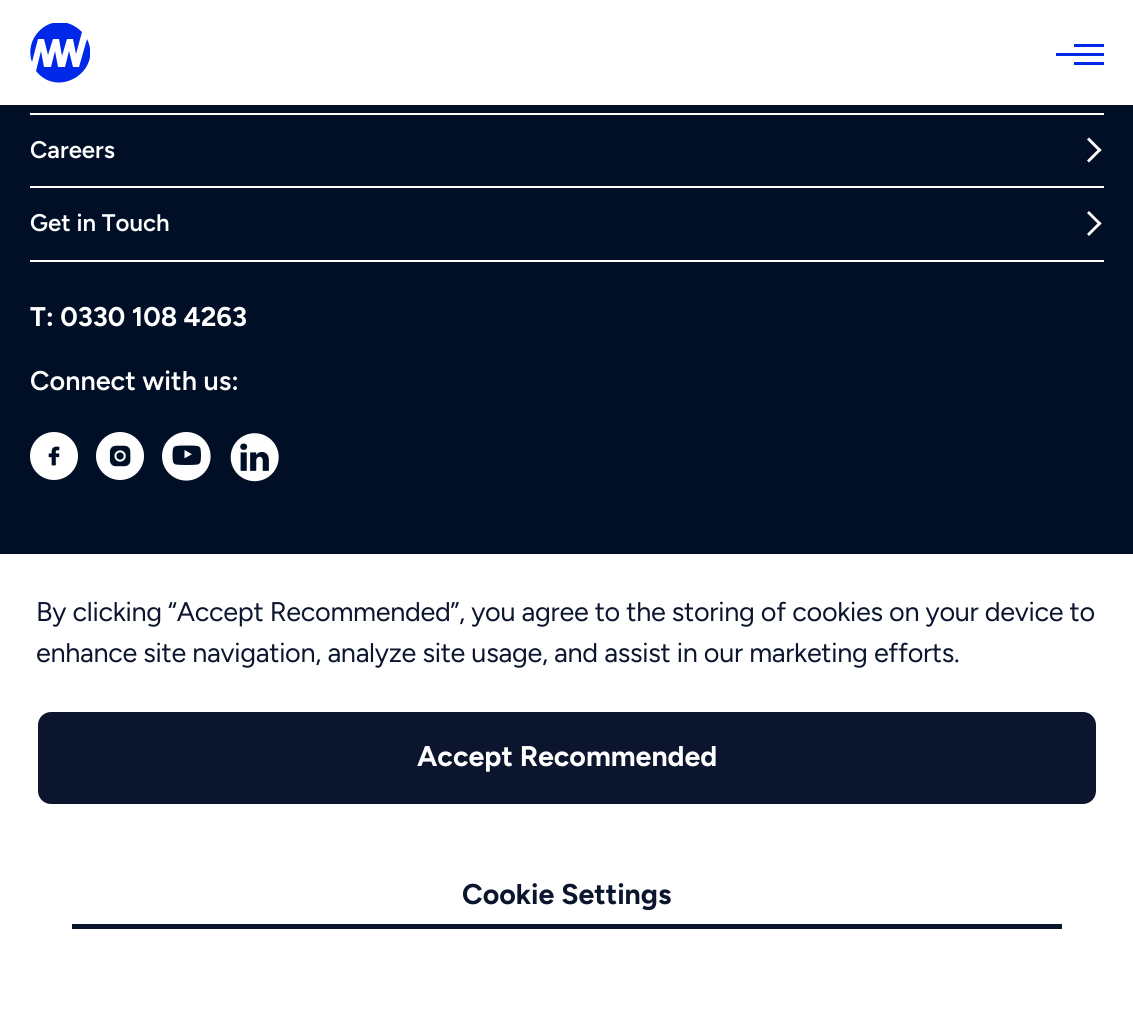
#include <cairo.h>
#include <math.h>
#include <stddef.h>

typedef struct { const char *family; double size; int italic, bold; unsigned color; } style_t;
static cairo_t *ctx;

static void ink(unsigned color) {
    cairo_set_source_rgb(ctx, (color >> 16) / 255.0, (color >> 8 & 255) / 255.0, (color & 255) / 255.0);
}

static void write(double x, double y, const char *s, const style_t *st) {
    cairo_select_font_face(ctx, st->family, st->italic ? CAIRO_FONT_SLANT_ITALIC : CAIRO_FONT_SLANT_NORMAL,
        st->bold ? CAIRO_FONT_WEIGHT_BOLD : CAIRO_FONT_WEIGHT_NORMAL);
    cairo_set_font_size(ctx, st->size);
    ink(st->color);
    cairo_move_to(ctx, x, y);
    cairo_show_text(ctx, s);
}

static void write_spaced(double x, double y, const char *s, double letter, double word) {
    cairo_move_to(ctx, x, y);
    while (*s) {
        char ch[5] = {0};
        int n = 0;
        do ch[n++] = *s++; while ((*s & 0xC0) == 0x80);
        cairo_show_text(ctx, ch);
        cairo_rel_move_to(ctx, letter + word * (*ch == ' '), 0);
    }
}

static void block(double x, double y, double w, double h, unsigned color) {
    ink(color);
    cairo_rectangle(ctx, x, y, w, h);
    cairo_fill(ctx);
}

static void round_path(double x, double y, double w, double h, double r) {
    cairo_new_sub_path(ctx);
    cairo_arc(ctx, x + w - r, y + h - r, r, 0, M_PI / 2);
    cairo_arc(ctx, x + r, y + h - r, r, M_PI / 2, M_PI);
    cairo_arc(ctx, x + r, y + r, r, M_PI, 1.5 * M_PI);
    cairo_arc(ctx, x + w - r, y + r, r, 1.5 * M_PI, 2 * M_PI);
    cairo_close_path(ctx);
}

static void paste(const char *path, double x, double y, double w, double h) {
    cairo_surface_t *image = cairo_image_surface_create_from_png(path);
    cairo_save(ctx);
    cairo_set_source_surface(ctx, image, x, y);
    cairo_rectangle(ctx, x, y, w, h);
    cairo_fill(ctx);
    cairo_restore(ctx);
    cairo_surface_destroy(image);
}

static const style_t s1 = {"Figtree SemiBold", 24, 0, 0, 0xffffff};
static const style_t s2 = {"Figtree", 27, 0, 1, 0xffffff};
static const style_t s3 = {"Figtree SemiBold", 27, 0, 0, 0xffffff};
static const style_t s4 = {"Figtree", 28.5, 0, 1, 0xffffff};
static const style_t s5 = {"Figtree", 28.5, 0, 1, 0x0b152d};

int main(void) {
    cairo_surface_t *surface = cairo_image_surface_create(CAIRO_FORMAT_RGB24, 1133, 1018);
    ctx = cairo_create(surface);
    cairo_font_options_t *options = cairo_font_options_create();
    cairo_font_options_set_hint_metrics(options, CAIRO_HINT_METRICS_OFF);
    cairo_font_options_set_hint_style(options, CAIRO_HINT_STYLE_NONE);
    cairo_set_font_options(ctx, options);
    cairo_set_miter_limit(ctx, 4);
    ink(0x000f26);
    cairo_paint(ctx);
    block(0, 0, 1133, 105, 0xffffff);
    cairo_save(ctx);
    cairo_rectangle(ctx, 30, 23, 60, 60);
    cairo_clip(ctx);
    ink(0x0028e9);
    cairo_new_path(ctx);
    cairo_move_to(ctx, 87, 39);
    cairo_curve_to(ctx, 103, 71, 58, 99, 36, 71);
    cairo_line_to(ctx, 41, 51);
    cairo_line_to(ctx, 44, 67);
    cairo_line_to(ctx, 51, 67);
    cairo_line_to(ctx, 55, 51);
    cairo_line_to(ctx, 58, 67);
    cairo_line_to(ctx, 65, 67);
    cairo_line_to(ctx, 69, 51);
    cairo_line_to(ctx, 73, 67);
    cairo_line_to(ctx, 79, 67);
    cairo_close_path(ctx);
    cairo_move_to(ctx, 60, 22);
    cairo_curve_to(ctx, 68, 22, 76, 26, 82, 32);
    cairo_line_to(ctx, 76, 54);
    cairo_line_to(ctx, 73, 39);
    cairo_line_to(ctx, 67, 39);
    cairo_line_to(ctx, 62, 56);
    cairo_line_to(ctx, 59, 39);
    cairo_line_to(ctx, 53, 39);
    cairo_line_to(ctx, 48, 55);
    cairo_line_to(ctx, 44, 39);
    cairo_line_to(ctx, 38, 39);
    cairo_line_to(ctx, 32, 62);
    cairo_curve_to(ctx, 25, 43, 40, 22, 60, 22);
    cairo_close_path(ctx);
    cairo_fill(ctx);
    cairo_restore(ctx);
    block(1074, 44, 30, 3, 0x0028e9);
    block(1056, 53, 48, 3, 0x0028e9);
    block(1074, 62, 30, 3, 0x0028e9);
    block(30, 113, 1074, 2, 0xffffff);
    block(30, 186, 1074, 2, 0xffffff);
    write(30, 158, "Careers", &s1);
    cairo_new_path(ctx);
    cairo_move_to(ctx, 1089, 137.5);
    cairo_line_to(ctx, 1101.5, 150);
    cairo_line_to(ctx, 1099.5, 152);
    cairo_line_to(ctx, 1087, 139.5);
    cairo_close_path(ctx);
    cairo_fill(ctx);
    cairo_new_path(ctx);
    cairo_move_to(ctx, 1099.5, 148);
    cairo_line_to(ctx, 1101.5, 150);
    cairo_line_to(ctx, 1089, 162.5);
    cairo_line_to(ctx, 1087, 160.5);
    cairo_close_path(ctx);
    cairo_fill(ctx);
    block(30, 260, 1074, 2, 0xffffff);
    write(30, 231, "Get in Touch", &s1);
    cairo_new_path(ctx);
    cairo_move_to(ctx, 1089, 211);
    cairo_line_to(ctx, 1101.5, 223.5);
    cairo_line_to(ctx, 1099.5, 225.5);
    cairo_line_to(ctx, 1087, 213);
    cairo_close_path(ctx);
    cairo_fill(ctx);
    cairo_new_path(ctx);
    cairo_move_to(ctx, 1099.5, 221.5);
    cairo_line_to(ctx, 1101.5, 223.5);
    cairo_line_to(ctx, 1089, 236);
    cairo_line_to(ctx, 1087, 234);
    cairo_close_path(ctx);
    cairo_fill(ctx);
    write(30, 326, "T: 0330 108 4263", &s2);
    write(30, 390, "Connect with us:", &s3);
    paste("pic1.png", 30, 432, 48, 48);
    paste("pic2.png", 96, 432, 48, 48);
    paste("pic3.png", 162, 432, 49, 49);
    paste("pic4.png", 230, 433, 49, 49);
    block(0, 554, 1133, 464, 0xffffff);
    cairo_select_font_face(ctx, "Figtree", CAIRO_FONT_SLANT_NORMAL, CAIRO_FONT_WEIGHT_NORMAL);
    ink(0x0b152d);
    write_spaced(36, 621, "By clicking “Accept Recommended”, you agree to the storing of cookies on your device to", -0.3, 0);
    write_spaced(36, 662, "enhance site navigation, analyze site usage, and assist in our marketing efforts.", -0.3, 0);
    round_path(37, 711, 1060, 94, 14);
    cairo_fill_preserve(ctx);
    ink(0xffffff);
    cairo_stroke(ctx);
    write(417, 766, "Accept Recommended", &s4);
    write(462, 904, "Cookie Settings", &s5);
    block(72, 924, 990, 5, 0x0b152d);
    cairo_surface_write_to_png(surface, "screenshot.png");
    cairo_font_options_destroy(options);
    cairo_destroy(ctx);
    cairo_surface_destroy(surface);
    return 0;
}
